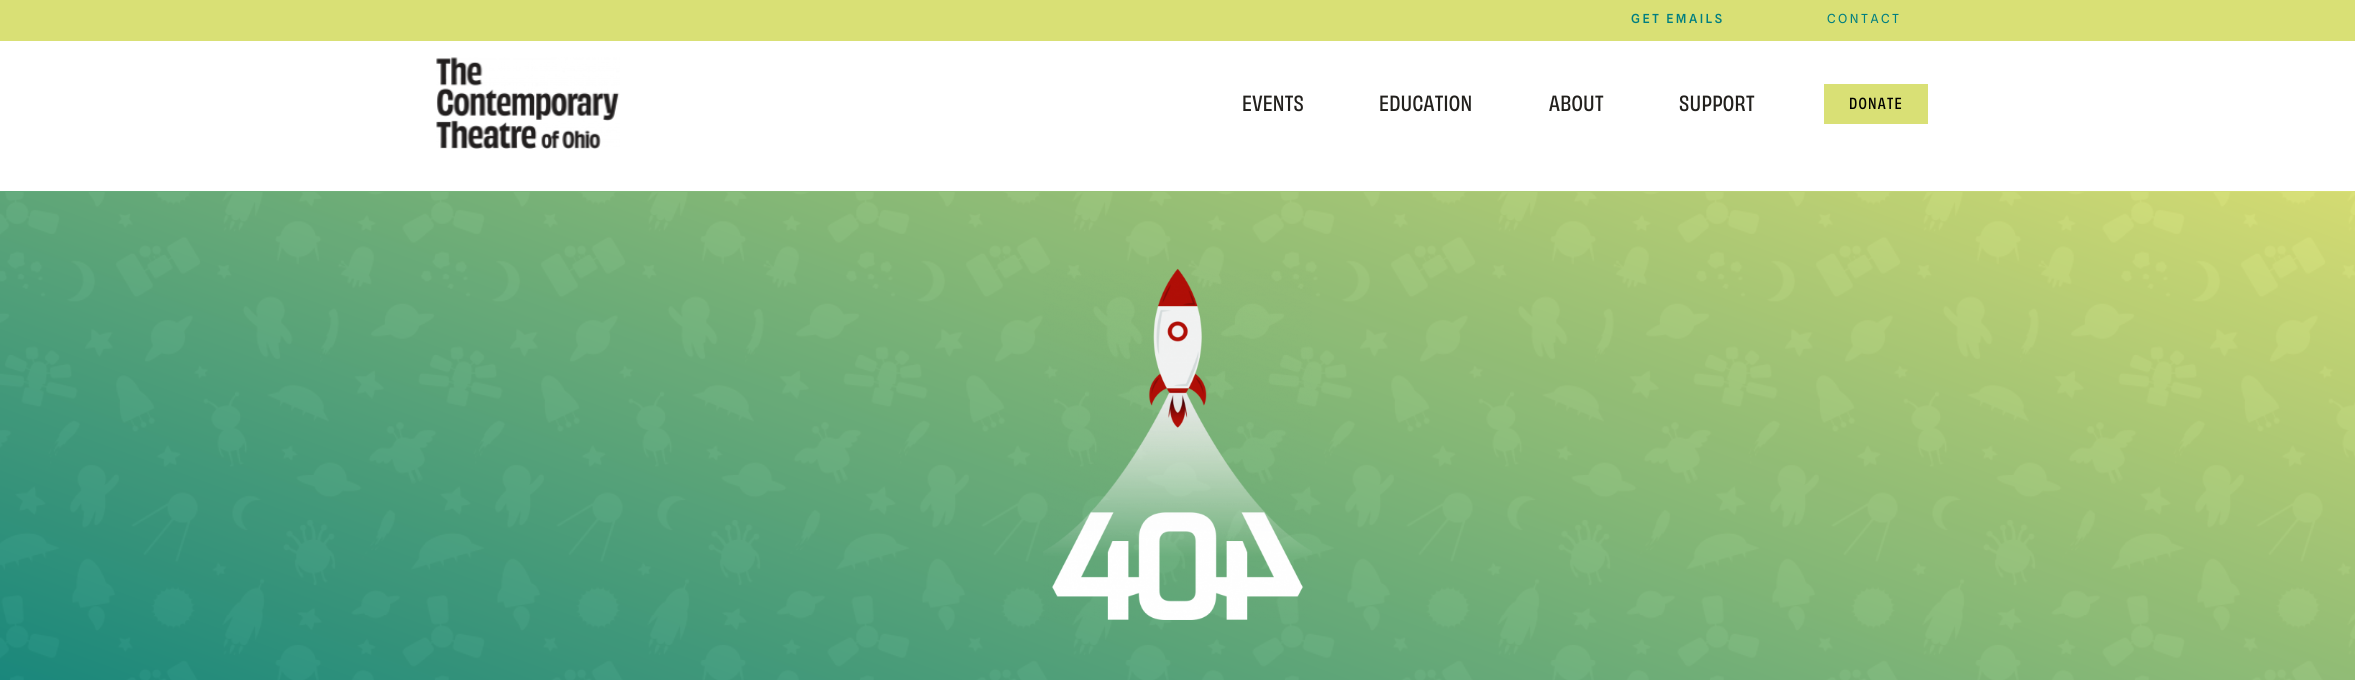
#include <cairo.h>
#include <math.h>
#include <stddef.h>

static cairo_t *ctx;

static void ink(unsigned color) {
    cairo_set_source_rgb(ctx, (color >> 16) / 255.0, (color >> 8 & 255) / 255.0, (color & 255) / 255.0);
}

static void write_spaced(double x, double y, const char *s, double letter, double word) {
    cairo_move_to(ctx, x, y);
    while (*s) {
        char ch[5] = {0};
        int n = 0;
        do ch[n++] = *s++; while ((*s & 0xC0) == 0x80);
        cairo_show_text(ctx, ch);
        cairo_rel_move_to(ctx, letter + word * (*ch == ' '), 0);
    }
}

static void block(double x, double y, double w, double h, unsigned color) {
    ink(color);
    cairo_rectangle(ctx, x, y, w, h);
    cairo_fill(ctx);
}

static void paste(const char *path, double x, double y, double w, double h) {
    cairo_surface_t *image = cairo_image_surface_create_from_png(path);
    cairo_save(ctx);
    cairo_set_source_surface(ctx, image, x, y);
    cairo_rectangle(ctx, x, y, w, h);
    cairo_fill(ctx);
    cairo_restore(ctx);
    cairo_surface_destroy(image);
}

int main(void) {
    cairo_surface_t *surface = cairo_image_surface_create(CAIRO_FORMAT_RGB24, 2355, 680);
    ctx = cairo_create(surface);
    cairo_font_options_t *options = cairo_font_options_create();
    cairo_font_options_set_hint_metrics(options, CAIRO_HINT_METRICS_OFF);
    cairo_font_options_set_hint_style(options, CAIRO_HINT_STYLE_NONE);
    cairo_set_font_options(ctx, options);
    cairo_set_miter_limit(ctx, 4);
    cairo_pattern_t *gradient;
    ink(0xffffff);
    cairo_paint(ctx);
    block(0, 0, 2355, 41, 0xd9e075);
    cairo_select_font_face(ctx, "Spline Sans Medium", CAIRO_FONT_SLANT_NORMAL, CAIRO_FONT_WEIGHT_NORMAL);
    cairo_set_font_size(ctx, 12.5);
    ink(0x007e80);
    write_spaced(1631, 23, "GET EMAILS", 2.5, 0);
    cairo_select_font_face(ctx, "Spline Sans", CAIRO_FONT_SLANT_NORMAL, CAIRO_FONT_WEIGHT_NORMAL);
    write_spaced(1827, 23, "CONTACT", 2.5, 0);
    paste("pic1.png", 436, 57, 184, 92);
    cairo_select_font_face(ctx, "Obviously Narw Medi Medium", CAIRO_FONT_SLANT_NORMAL, CAIRO_FONT_WEIGHT_NORMAL);
    cairo_set_font_size(ctx, 20.5);
    ink(0x22201d);
    write_spaced(1242, 111, "EVENTS", 0.25, 0);
    write_spaced(1379, 111, "EDUCATION", 0.25, 0);
    write_spaced(1549, 111, "ABOUT", 0.25, 0);
    write_spaced(1679, 111, "SUPPORT", 0.25, 0);
    block(1824, 84, 104, 40, 0xd9e075);
    cairo_set_font_size(ctx, 15);
    ink(0x000000);
    write_spaced(1849, 109, "DONATE", 1.25, 0);
    gradient = cairo_pattern_create_linear(1425, -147, 930, 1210);
    cairo_pattern_add_color_stop_rgba(gradient, 0, 0.851, 0.878, 0.459, 1);
    cairo_pattern_add_color_stop_rgba(gradient, 1, 0, 0.494, 0.502, 1);
    cairo_set_source(ctx, gradient);
    cairo_pattern_destroy(gradient);
    cairo_rectangle(ctx, 0, 191, 2355, 489);
    cairo_fill(ctx);
    paste("pic2.png", 0, 192, 2355, 488);
    paste("pic3.png", 1043, 268, 269, 352);
    cairo_surface_write_to_png(surface, "screenshot.png");
    cairo_font_options_destroy(options);
    cairo_destroy(ctx);
    cairo_surface_destroy(surface);
    return 0;
}
